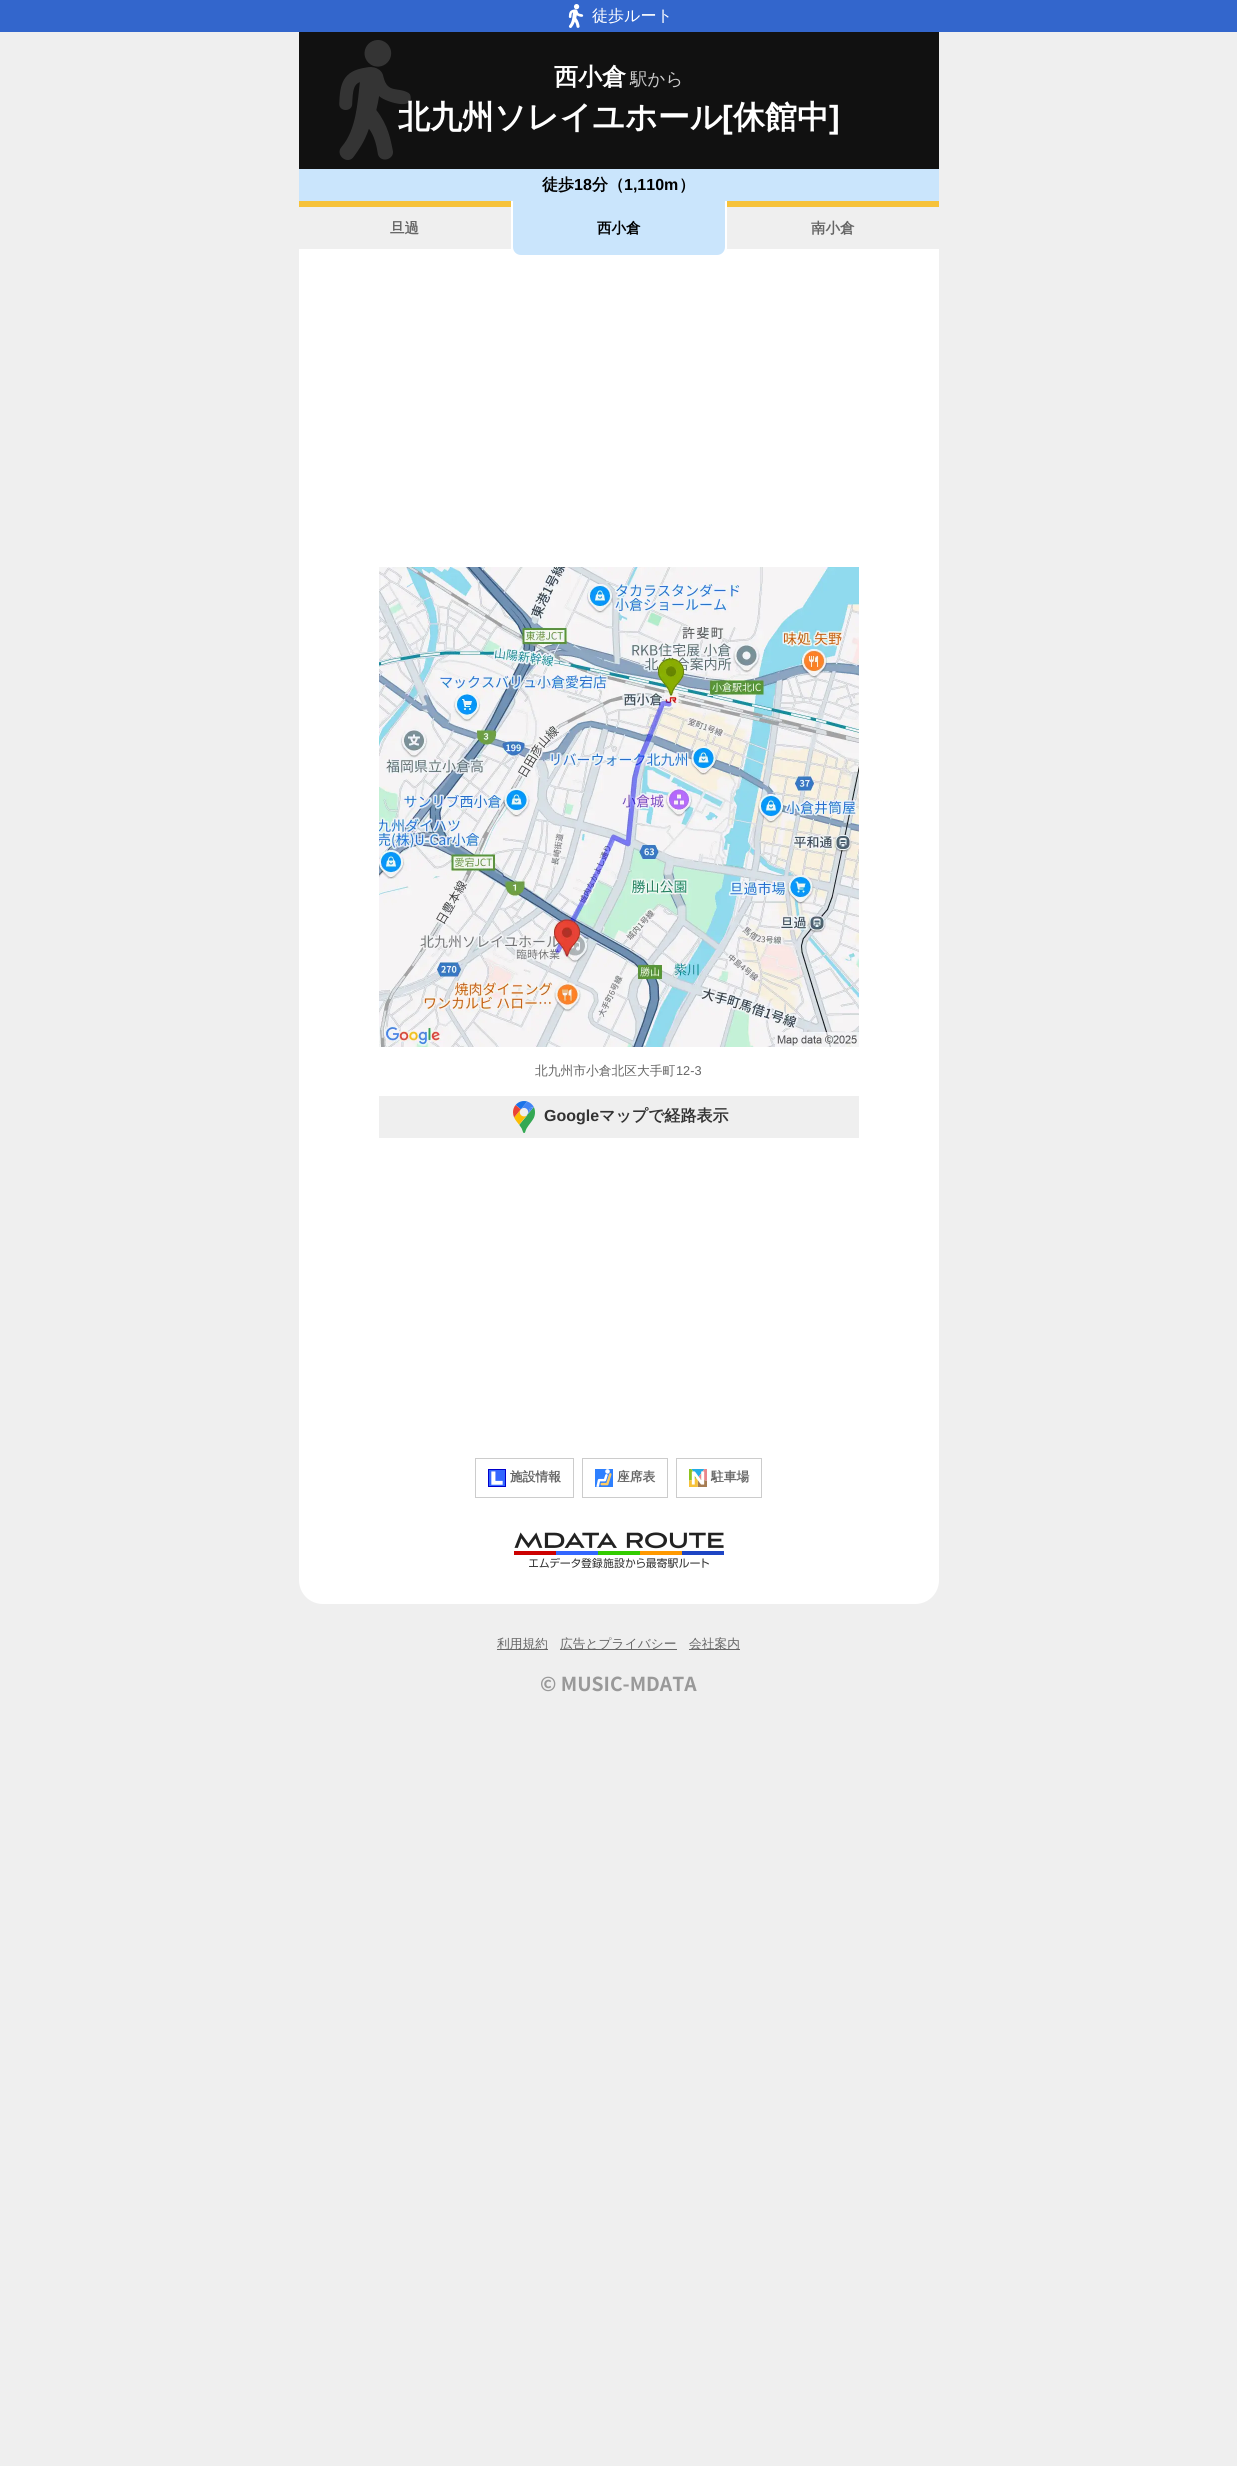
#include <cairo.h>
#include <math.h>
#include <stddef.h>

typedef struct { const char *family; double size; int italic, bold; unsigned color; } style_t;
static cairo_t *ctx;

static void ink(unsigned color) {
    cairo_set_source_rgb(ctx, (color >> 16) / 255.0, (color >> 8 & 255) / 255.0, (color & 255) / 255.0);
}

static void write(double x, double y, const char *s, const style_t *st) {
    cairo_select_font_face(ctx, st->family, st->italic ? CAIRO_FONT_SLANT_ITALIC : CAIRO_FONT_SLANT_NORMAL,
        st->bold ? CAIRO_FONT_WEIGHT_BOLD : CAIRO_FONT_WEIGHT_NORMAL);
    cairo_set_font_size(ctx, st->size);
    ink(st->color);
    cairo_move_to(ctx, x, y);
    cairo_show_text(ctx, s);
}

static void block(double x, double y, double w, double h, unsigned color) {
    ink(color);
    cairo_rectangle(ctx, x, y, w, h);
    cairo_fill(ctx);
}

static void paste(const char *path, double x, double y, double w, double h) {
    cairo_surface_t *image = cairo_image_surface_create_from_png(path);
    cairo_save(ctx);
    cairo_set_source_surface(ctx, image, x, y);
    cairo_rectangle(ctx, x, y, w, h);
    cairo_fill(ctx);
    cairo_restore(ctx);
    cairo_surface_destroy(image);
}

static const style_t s1 = {"WenQuanYi Zen Hei Medium", 16, 0, 0, 0xffffff};
static const style_t s2 = {"WenQuanYi Zen Hei", 32, 0, 1, 0xffffff};
static const style_t s3 = {"WenQuanYi Zen Hei", 24, 0, 1, 0xffffff};
static const style_t s4 = {"WenQuanYi Zen Hei Medium", 17.5, 0, 0, 0xcccccc};
static const style_t s5 = {"Liberation Sans", 32, 0, 1, 0xffffff};
static const style_t s6 = {"WenQuanYi Zen Hei", 16, 0, 1, 0x000000};
static const style_t s7 = {"Liberation Sans", 16, 0, 1, 0x000000};
static const style_t s8 = {"WenQuanYi Zen Hei", 14.5, 0, 1, 0x666666};
static const style_t s9 = {"WenQuanYi Zen Hei", 14.5, 0, 1, 0x000000};
static const style_t s10 = {"WenQuanYi Zen Hei Medium", 12.75, 0, 0, 0x666666};
static const style_t s11 = {"Liberation Sans", 12.75, 0, 0, 0x666666};
static const style_t s12 = {"Liberation Sans", 16, 0, 1, 0x333333};
static const style_t s13 = {"WenQuanYi Zen Hei", 16, 0, 1, 0x333333};
static const style_t s14 = {"WenQuanYi Zen Hei", 12.75, 0, 1, 0x666666};
static const style_t s15 = {"Noto Sans JP", 19.25, 0, 1, 0x999999};

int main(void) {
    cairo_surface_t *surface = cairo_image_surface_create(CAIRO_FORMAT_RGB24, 1237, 2466);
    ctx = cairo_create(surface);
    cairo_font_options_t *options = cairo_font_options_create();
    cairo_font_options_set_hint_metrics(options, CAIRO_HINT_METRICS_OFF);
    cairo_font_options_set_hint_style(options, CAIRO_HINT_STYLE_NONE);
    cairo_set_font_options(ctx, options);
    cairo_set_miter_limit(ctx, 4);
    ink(0xefefef);
    cairo_paint(ctx);
    block(0, 0, 1237, 32, 0x3366cc);
    paste("pic1.png", 568, 4, 16, 24);
    write(592, 21, "徒歩ルート", &s1);
    cairo_new_path(ctx);
    cairo_move_to(ctx, 299, 32);
    cairo_line_to(ctx, 939, 32);
    cairo_line_to(ctx, 939, 1580);
    cairo_curve_to(ctx, 939, 1593.5, 928.5, 1604, 915, 1604);
    cairo_line_to(ctx, 323, 1604);
    cairo_curve_to(ctx, 309.5, 1604, 299, 1593.5, 299, 1580);
    cairo_close_path(ctx);
    cairo_fill(ctx);
    block(299, 32, 640, 137, 0x111111);
    write(398, 128, "北九州ソレイユホール", &s2);
    paste("pic2.png", 339, 40, 72, 120);
    write(554, 85, "西小倉", &s3);
    write(630, 85, "駅から", &s4);
    write(722, 128, "[", &s5);
    write(733, 128, "休館中", &s2);
    write(829, 128, "]", &s5);
    block(299, 169, 640, 32, 0xcae5fc);
    write(542, 190, "徒歩", &s6);
    write(574, 190, "18", &s7);
    write(592, 190, "分（", &s6);
    write(624, 190, "1,110m", &s7);
    write(679, 190, "）", &s6);
    block(299, 207, 212, 42, 0xefefef);
    block(299, 201, 212, 6, 0xf6c23a);
    write(390, 233, "旦過", &s8);
    ink(0xcae5fc);
    cairo_new_path(ctx);
    cairo_move_to(ctx, 513, 201);
    cairo_line_to(ctx, 725, 201);
    cairo_line_to(ctx, 725, 247);
    cairo_curve_to(ctx, 725, 251.5, 721.5, 255, 717, 255);
    cairo_line_to(ctx, 521, 255);
    cairo_curve_to(ctx, 516.5, 255, 513, 251.5, 513, 247);
    cairo_close_path(ctx);
    cairo_fill(ctx);
    write(597, 233, "西小倉", &s9);
    block(727, 207, 212, 42, 0xefefef);
    block(727, 201, 212, 6, 0xf6c23a);
    write(811, 233, "南小倉", &s8);
    paste("pic3.png", 379, 567, 480, 480);
    write(535, 1075, "北九州市小倉北区大手町", &s10);
    write(676, 1075, "12-3", &s11);
    block(379, 1096, 480, 42, 0xefefef);
    paste("pic4.png", 513, 1101, 22, 32);
    write(544, 1121, "Google", &s12);
    write(599, 1121, "マップで経路表示", &s13);
    cairo_rectangle(ctx, 475.5, 1458.5, 98, 39);
    ink(0xcccccc);
    cairo_set_line_width(ctx, 1);
    cairo_stroke(ctx);
    paste("pic5.png", 488, 1469, 18, 18);
    write(510, 1481, "施設情報", &s14);
    cairo_rectangle(ctx, 582.5, 1458.5, 85, 39);
    ink(0xcccccc);
    cairo_stroke(ctx);
    paste("pic6.png", 595, 1469, 18, 18);
    write(617, 1481, "座席表", &s14);
    cairo_rectangle(ctx, 676.5, 1458.5, 85, 39);
    ink(0xcccccc);
    cairo_stroke(ctx);
    paste("pic7.png", 689, 1469, 18, 18);
    write(711, 1481, "駐車場", &s14);
    paste("pic8.png", 514, 1532, 210, 37);
    block(497, 1649, 51, 1, 0x666666);
    write(497, 1648, "利用規約", &s10);
    block(560, 1649, 117, 1, 0x666666);
    write(560, 1648, "広告とプライバシー", &s10);
    block(689, 1649, 51, 1, 0x666666);
    write(689, 1648, "会社案内", &s10);
    write(540, 1691, "© MUSIC-MDATA", &s15);
    cairo_surface_write_to_png(surface, "screenshot.png");
    cairo_font_options_destroy(options);
    cairo_destroy(ctx);
    cairo_surface_destroy(surface);
    return 0;
}
